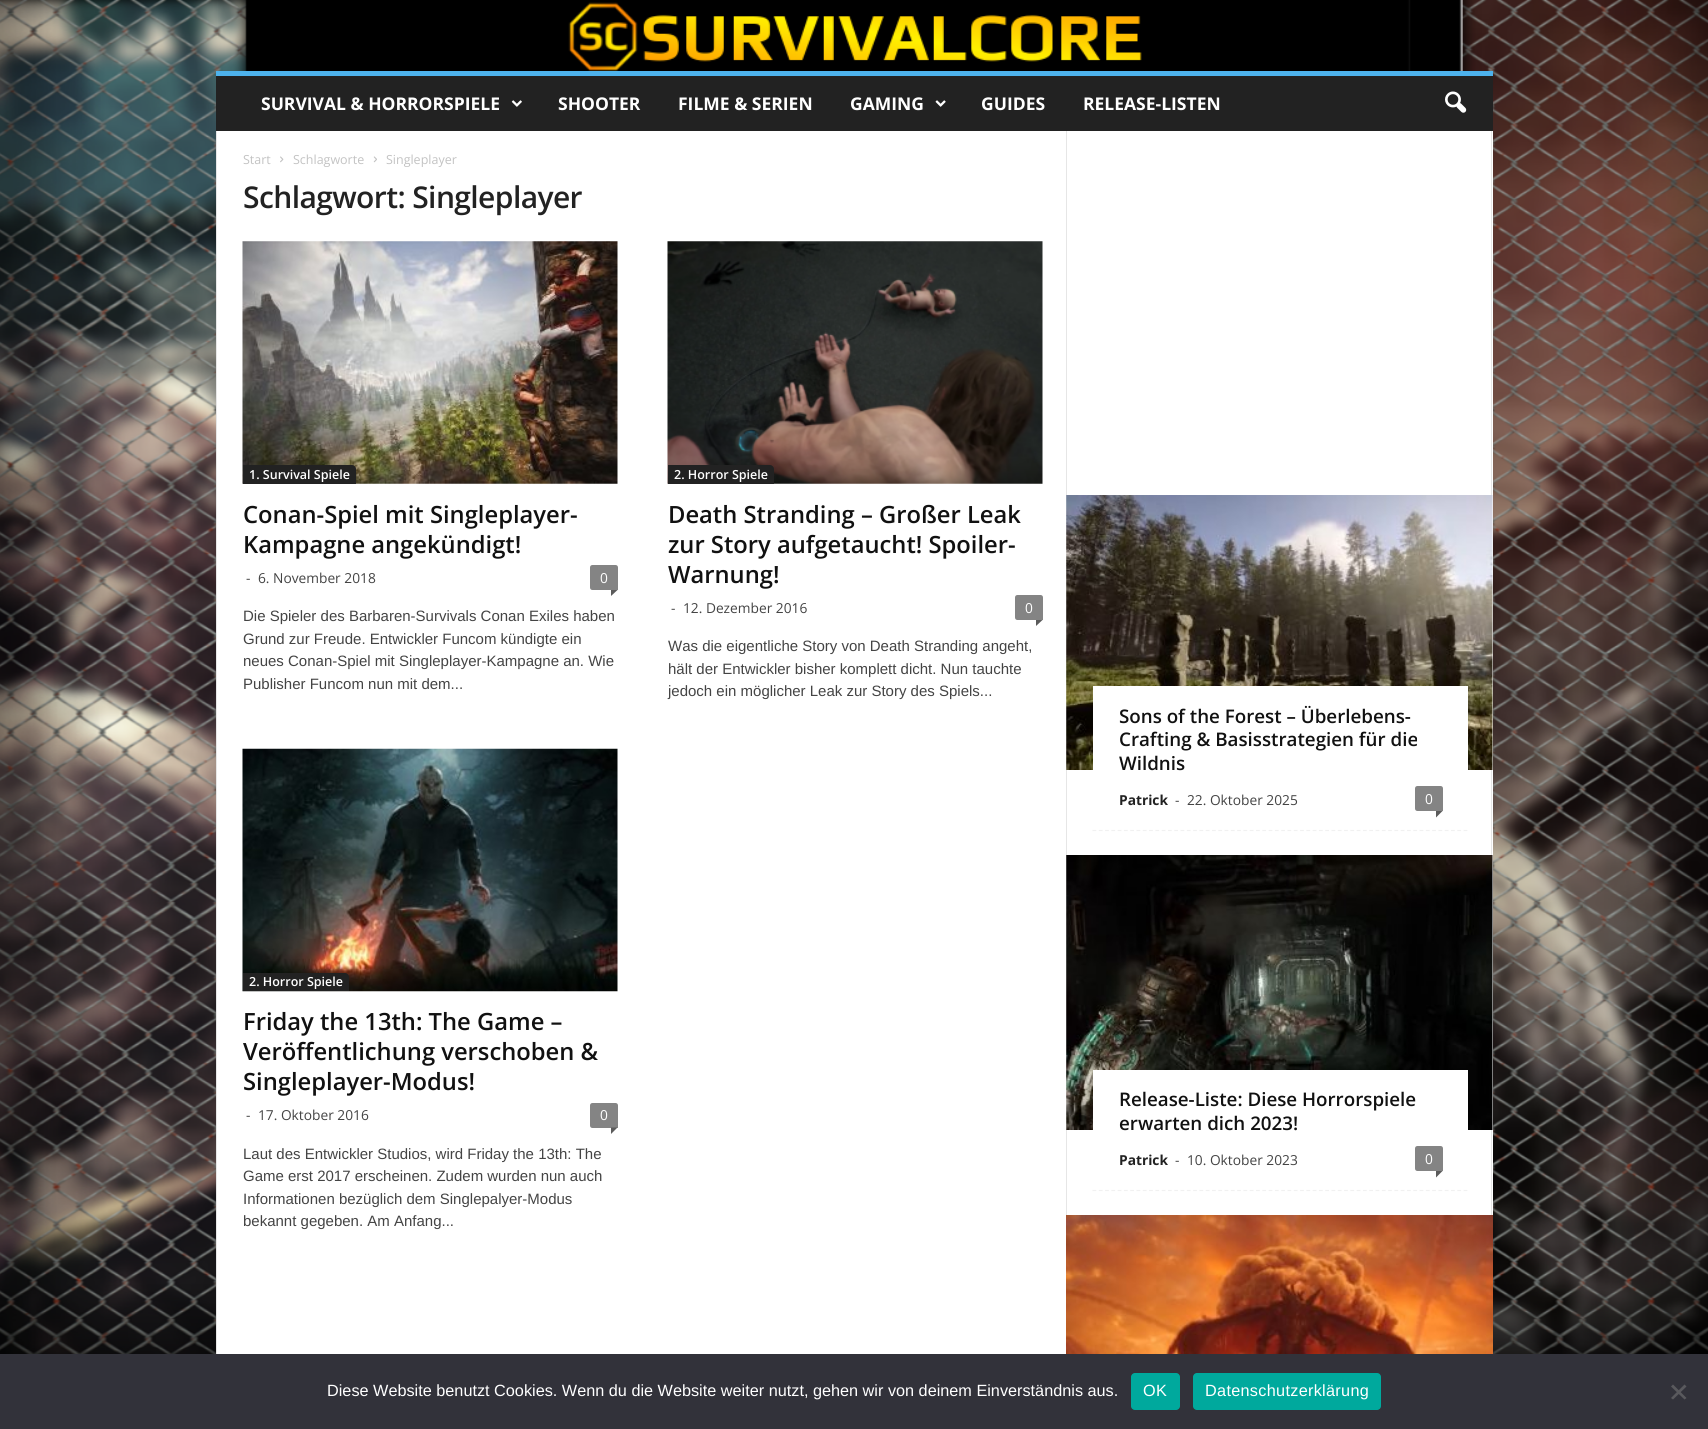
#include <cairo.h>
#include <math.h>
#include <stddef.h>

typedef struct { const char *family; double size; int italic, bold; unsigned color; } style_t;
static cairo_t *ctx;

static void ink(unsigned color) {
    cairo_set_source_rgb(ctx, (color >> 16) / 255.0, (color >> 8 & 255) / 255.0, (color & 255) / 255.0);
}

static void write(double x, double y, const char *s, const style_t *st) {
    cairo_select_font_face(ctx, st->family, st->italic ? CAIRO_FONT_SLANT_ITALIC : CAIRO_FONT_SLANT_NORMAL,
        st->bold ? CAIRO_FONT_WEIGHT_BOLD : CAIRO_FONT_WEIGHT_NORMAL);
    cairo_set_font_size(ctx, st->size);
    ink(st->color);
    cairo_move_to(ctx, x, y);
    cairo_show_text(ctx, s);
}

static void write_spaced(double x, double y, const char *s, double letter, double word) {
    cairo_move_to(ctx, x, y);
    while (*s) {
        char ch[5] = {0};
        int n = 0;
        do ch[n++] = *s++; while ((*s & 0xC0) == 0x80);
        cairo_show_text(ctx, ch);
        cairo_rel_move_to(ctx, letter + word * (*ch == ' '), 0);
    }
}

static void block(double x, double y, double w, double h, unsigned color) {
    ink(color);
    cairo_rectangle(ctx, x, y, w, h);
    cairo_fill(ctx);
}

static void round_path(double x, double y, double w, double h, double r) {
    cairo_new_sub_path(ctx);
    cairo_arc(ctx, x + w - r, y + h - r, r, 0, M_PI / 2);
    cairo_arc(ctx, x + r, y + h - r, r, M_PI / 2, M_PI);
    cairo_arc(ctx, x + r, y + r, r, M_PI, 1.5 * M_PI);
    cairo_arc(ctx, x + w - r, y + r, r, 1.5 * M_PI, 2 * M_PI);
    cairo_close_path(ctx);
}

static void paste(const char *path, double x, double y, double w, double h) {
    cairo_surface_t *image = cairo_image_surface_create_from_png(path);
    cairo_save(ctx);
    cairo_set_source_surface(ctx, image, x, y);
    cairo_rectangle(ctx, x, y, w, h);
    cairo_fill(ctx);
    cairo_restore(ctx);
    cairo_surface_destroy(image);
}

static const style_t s1 = {"Open Sans", 17.5, 0, 1, 0xffffff};
static const style_t s2 = {"Open Sans", 12.5, 0, 0, 0xc3c3c3};
static const style_t s3 = {"Open Sans SemiBold", 12.5, 0, 0, 0xffffff};
static const style_t s4 = {"Open Sans SemiBold", 23.75, 0, 0, 0x111111};
static const style_t s5 = {"Open Sans", 13.75, 0, 0, 0x444444};
static const style_t s6 = {"Open Sans", 13.75, 0, 0, 0xffffff};
static const style_t s7 = {"Liberation Sans", 15, 0, 0, 0x444444};
static const style_t s8 = {"Open Sans SemiBold", 18.75, 0, 0, 0x111111};
static const style_t s9 = {"Open Sans", 13.75, 0, 1, 0x222222};
static const style_t s10 = {"Liberation Sans", 16.25, 0, 0, 0xffffff};

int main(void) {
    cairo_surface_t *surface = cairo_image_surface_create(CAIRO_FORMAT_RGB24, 1708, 1429);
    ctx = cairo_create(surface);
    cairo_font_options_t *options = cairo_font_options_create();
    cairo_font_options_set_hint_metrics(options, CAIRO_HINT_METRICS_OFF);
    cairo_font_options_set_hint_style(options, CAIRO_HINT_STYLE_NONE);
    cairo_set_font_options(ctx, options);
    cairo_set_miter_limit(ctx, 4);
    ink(0xffffff);
    cairo_paint(ctx);
    paste("pic1.png", 0, 0, 1708, 1354);
    paste("pic2.png", 568, 2, 574, 69);
    block(216, 76, 1277, 55, 0x222222);
    block(216, 71, 1277, 5, 0x4db2ec);
    write(261, 110, "SURVIVAL & HORRORSPIELE", &s1);
    paste("pic3.png", 511, 100, 11, 7);
    write(558, 110, "SHOOTER", &s1);
    write(678, 110, "FILME & SERIEN", &s1);
    write(850, 110, "GAMING", &s1);
    paste("pic4.png", 935, 100, 11, 7);
    write(981, 110, "GUIDES", &s1);
    write(1083, 110, "RELEASE-LISTEN", &s1);
    paste("pic5.png", 1445, 91, 22, 22);
    block(217, 131, 1276, 1223, 0xffffff);
    block(216, 131, 1, 1223, 0xe6e6e6);
    write(243, 164, "Start", &s2);
    paste("pic6.png", 280, 156, 4, 7);
    write(293, 164, "Schlagworte", &s2);
    paste("pic7.png", 373, 156, 4, 7);
    write(386, 164, "Singleplayer", &s2);
    cairo_select_font_face(ctx, "Open Sans SemiBold", CAIRO_FONT_SLANT_NORMAL, CAIRO_FONT_WEIGHT_NORMAL);
    cairo_set_font_size(ctx, 30);
    ink(0x222222);
    write_spaced(243, 208, "Schlagwort: Singleplayer", -0.6, 0);
    paste("pic8.png", 242, 241, 376, 243);
    cairo_new_path(ctx);
    cairo_move_to(ctx, 243, 465);
    cairo_line_to(ctx, 352, 465);
    cairo_curve_to(ctx, 354, 465, 356, 467, 356, 469);
    cairo_line_to(ctx, 356, 484);
    cairo_line_to(ctx, 243, 484);
    cairo_close_path(ctx);
    cairo_fill(ctx);
    write(249, 479, "1. Survival Spiele", &s3);
    write(243, 523, "Conan-Spiel mit Singleplayer-", &s4);
    write(243, 553, "Kampagne angekündigt!", &s4);
    write(246, 583, "-", &s5);
    write(258, 583, "6. November 2018", &s5);
    ink(0x848484);
    cairo_new_path(ctx);
    cairo_move_to(ctx, 592.5, 565);
    cairo_line_to(ctx, 615.5, 565);
    cairo_curve_to(ctx, 617, 565, 618, 566, 618, 567.5);
    cairo_line_to(ctx, 618, 590);
    cairo_line_to(ctx, 592.5, 590);
    cairo_curve_to(ctx, 591, 590, 590, 589, 590, 587.5);
    cairo_line_to(ctx, 590, 567.5);
    cairo_curve_to(ctx, 590, 566, 591, 565, 592.5, 565);
    cairo_close_path(ctx);
    cairo_fill(ctx);
    write(600, 583, "0", &s6);
    ink(0x5b5b5b);
    cairo_new_path(ctx);
    cairo_move_to(ctx, 611, 590);
    cairo_line_to(ctx, 617.5, 590);
    cairo_line_to(ctx, 611, 596);
    cairo_close_path(ctx);
    cairo_fill(ctx);
    write(243, 621, "Die Spieler des Barbaren-Survivals Conan Exiles haben", &s7);
    write(243, 644, "Grund zur Freude. Entwickler Funcom kündigte ein", &s7);
    write(243, 666, "neues Conan-Spiel mit Singleplayer-Kampagne an. Wie", &s7);
    write(243, 689, "Publisher Funcom nun mit dem...", &s7);
    paste("pic9.png", 667, 241, 376, 243);
    ink(0x222222);
    cairo_new_path(ctx);
    cairo_move_to(ctx, 668, 465);
    cairo_line_to(ctx, 770, 465);
    cairo_curve_to(ctx, 772, 465, 774, 467, 774, 469);
    cairo_line_to(ctx, 774, 484);
    cairo_line_to(ctx, 668, 484);
    cairo_close_path(ctx);
    cairo_fill(ctx);
    write(674, 479, "2. Horror Spiele", &s3);
    write(668, 523, "Death Stranding – Großer Leak", &s4);
    write(668, 553, "zur Story aufgetaucht! Spoiler-", &s4);
    write(668, 583, "Warnung!", &s4);
    write(671, 613, "-", &s5);
    write(683, 613, "12. Dezember 2016", &s5);
    ink(0x848484);
    cairo_new_path(ctx);
    cairo_move_to(ctx, 1017.5, 595);
    cairo_line_to(ctx, 1040.5, 595);
    cairo_curve_to(ctx, 1042, 595, 1043, 596, 1043, 597.5);
    cairo_line_to(ctx, 1043, 620);
    cairo_line_to(ctx, 1017.5, 620);
    cairo_curve_to(ctx, 1016, 620, 1015, 619, 1015, 617.5);
    cairo_line_to(ctx, 1015, 597.5);
    cairo_curve_to(ctx, 1015, 596, 1016, 595, 1017.5, 595);
    cairo_close_path(ctx);
    cairo_fill(ctx);
    write(1025, 613, "0", &s6);
    ink(0x5b5b5b);
    cairo_new_path(ctx);
    cairo_move_to(ctx, 1036, 620);
    cairo_line_to(ctx, 1042.5, 620);
    cairo_line_to(ctx, 1036, 626);
    cairo_close_path(ctx);
    cairo_fill(ctx);
    write(668, 651, "Was die eigentliche Story von Death Stranding angeht,", &s7);
    write(668, 674, "hält der Entwickler bisher komplett dicht. Nun tauchte", &s7);
    write(668, 696, "jedoch ein möglicher Leak zur Story des Spiels...", &s7);
    paste("pic10.png", 242, 748, 376, 244);
    ink(0x222222);
    cairo_new_path(ctx);
    cairo_move_to(ctx, 243, 973);
    cairo_line_to(ctx, 345, 973);
    cairo_curve_to(ctx, 347, 973, 349, 975, 349, 977);
    cairo_line_to(ctx, 349, 991);
    cairo_line_to(ctx, 243, 991);
    cairo_close_path(ctx);
    cairo_fill(ctx);
    write(249, 986, "2. Horror Spiele", &s3);
    write(243, 1030, "Friday the 13th: The Game –", &s4);
    write(243, 1060, "Veröffentlichung verschoben &", &s4);
    write(243, 1090, "Singleplayer-Modus!", &s4);
    write(246, 1120, "-", &s5);
    write(258, 1120, "17. Oktober 2016", &s5);
    ink(0x848484);
    cairo_new_path(ctx);
    cairo_move_to(ctx, 592.5, 1103);
    cairo_line_to(ctx, 615.5, 1103);
    cairo_curve_to(ctx, 617, 1103, 618, 1104, 618, 1105.5);
    cairo_line_to(ctx, 618, 1128);
    cairo_line_to(ctx, 592.5, 1128);
    cairo_curve_to(ctx, 591, 1128, 590, 1127, 590, 1125.5);
    cairo_line_to(ctx, 590, 1105.5);
    cairo_curve_to(ctx, 590, 1104, 591, 1103, 592.5, 1103);
    cairo_close_path(ctx);
    cairo_fill(ctx);
    write(600, 1120, "0", &s6);
    ink(0x5b5b5b);
    cairo_new_path(ctx);
    cairo_move_to(ctx, 611, 1127.5);
    cairo_line_to(ctx, 617.5, 1127.5);
    cairo_line_to(ctx, 611, 1134);
    cairo_close_path(ctx);
    cairo_fill(ctx);
    write(243, 1159, "Laut des Entwickler Studios, wird Friday the 13th: The", &s7);
    write(243, 1181, "Game erst 2017 erscheinen. Zudem wurden nun auch", &s7);
    write(243, 1204, "Informationen bezüglich dem Singlepalyer-Modus", &s7);
    write(243, 1226, "bekannt gegeben. Am Anfang...", &s7);
    block(1066, 131, 1, 1084, 0xe6e6e6);
    block(1491, 131, 1, 1084, 0xe6e6e6);
    paste("pic11.png", 1066, 495, 427, 275);
    block(1093, 686, 375, 84, 0xffffff);
    cairo_new_path(ctx);
    cairo_move_to(ctx, 1092.5, 830.5);
    cairo_line_to(ctx, 1467.5, 830.5);
    ink(0xf1f1f1);
    cairo_set_line_width(ctx, 1.2);
    cairo_set_dash(ctx, (double[]){3.75, 2.54}, 2, 0);
    cairo_stroke(ctx);
    write(1119, 723, "Sons of the Forest – Überlebens-", &s8);
    write(1119, 746, "Crafting & Basisstrategien für die", &s8);
    write(1119, 770, "Wildnis", &s8);
    write(1119, 805, "Patrick", &s9);
    write(1175, 805, "-", &s5);
    write(1187, 805, "22. Oktober 2025", &s5);
    ink(0x848484);
    cairo_new_path(ctx);
    cairo_move_to(ctx, 1417.5, 786);
    cairo_line_to(ctx, 1440.5, 786);
    cairo_curve_to(ctx, 1442, 786, 1443, 787, 1443, 788.5);
    cairo_line_to(ctx, 1443, 811);
    cairo_line_to(ctx, 1417.5, 811);
    cairo_curve_to(ctx, 1416, 811, 1415, 810, 1415, 808.5);
    cairo_line_to(ctx, 1415, 788.5);
    cairo_curve_to(ctx, 1415, 787, 1416, 786, 1417.5, 786);
    cairo_close_path(ctx);
    cairo_fill(ctx);
    write(1425, 804, "0", &s6);
    ink(0x5b5b5b);
    cairo_new_path(ctx);
    cairo_move_to(ctx, 1436, 811);
    cairo_line_to(ctx, 1442.5, 811);
    cairo_line_to(ctx, 1436, 817.5);
    cairo_close_path(ctx);
    cairo_fill(ctx);
    paste("pic12.png", 1066, 855, 427, 275);
    block(1093, 1070, 375, 60, 0xffffff);
    cairo_new_path(ctx);
    cairo_move_to(ctx, 1092.5, 1190.5);
    cairo_line_to(ctx, 1467.5, 1190.5);
    ink(0xf1f1f1);
    cairo_stroke(ctx);
    write(1119, 1106, "Release-Liste: Diese Horrorspiele", &s8);
    write(1119, 1130, "erwarten dich 2023!", &s8);
    write(1119, 1165, "Patrick", &s9);
    write(1175, 1165, "-", &s5);
    write(1187, 1165, "10. Oktober 2023", &s5);
    ink(0x848484);
    cairo_new_path(ctx);
    cairo_move_to(ctx, 1417.5, 1146);
    cairo_line_to(ctx, 1440.5, 1146);
    cairo_curve_to(ctx, 1442, 1146, 1443, 1147, 1443, 1148.5);
    cairo_line_to(ctx, 1443, 1171);
    cairo_line_to(ctx, 1417.5, 1171);
    cairo_curve_to(ctx, 1416, 1171, 1415, 1170, 1415, 1168.5);
    cairo_line_to(ctx, 1415, 1148.5);
    cairo_curve_to(ctx, 1415, 1147, 1416, 1146, 1417.5, 1146);
    cairo_close_path(ctx);
    cairo_fill(ctx);
    write(1425, 1164, "0", &s6);
    ink(0x5b5b5b);
    cairo_new_path(ctx);
    cairo_move_to(ctx, 1436, 1171);
    cairo_line_to(ctx, 1442.5, 1171);
    cairo_line_to(ctx, 1436, 1177.5);
    cairo_close_path(ctx);
    cairo_fill(ctx);
    paste("pic13.png", 1066, 1215, 427, 139);
    block(0, 1354, 1708, 75, 0x32323a);
    write(327, 1396, "Diese Website benutzt Cookies. Wenn du die Website weiter nutzt, gehen wir von deinem Einverständnis aus.", &s10);
    ink(0x00a99d);
    round_path(1131, 1373, 49, 37, 4);
    cairo_fill(ctx);
    ink(0xffffff);
    write_spaced(1143, 1396, "OK", 0.3, 0);
    ink(0x00a99d);
    round_path(1193, 1373, 188, 37, 4);
    cairo_fill(ctx);
    ink(0xffffff);
    write_spaced(1205, 1396, "Datenschutzerklärung", 0.3, 0);
    ink(0x59595d);
    cairo_new_path(ctx);
    cairo_move_to(ctx, 1684.5, 1384.5);
    cairo_line_to(ctx, 1686.5, 1386.5);
    cairo_line_to(ctx, 1673, 1399.5);
    cairo_line_to(ctx, 1671, 1398);
    cairo_close_path(ctx);
    cairo_fill(ctx);
    cairo_new_path(ctx);
    cairo_move_to(ctx, 1671, 1386.5);
    cairo_line_to(ctx, 1673, 1384.5);
    cairo_line_to(ctx, 1686.5, 1398);
    cairo_line_to(ctx, 1684.5, 1399.5);
    cairo_close_path(ctx);
    cairo_fill(ctx);
    cairo_surface_write_to_png(surface, "screenshot.png");
    cairo_font_options_destroy(options);
    cairo_destroy(ctx);
    cairo_surface_destroy(surface);
    return 0;
}
